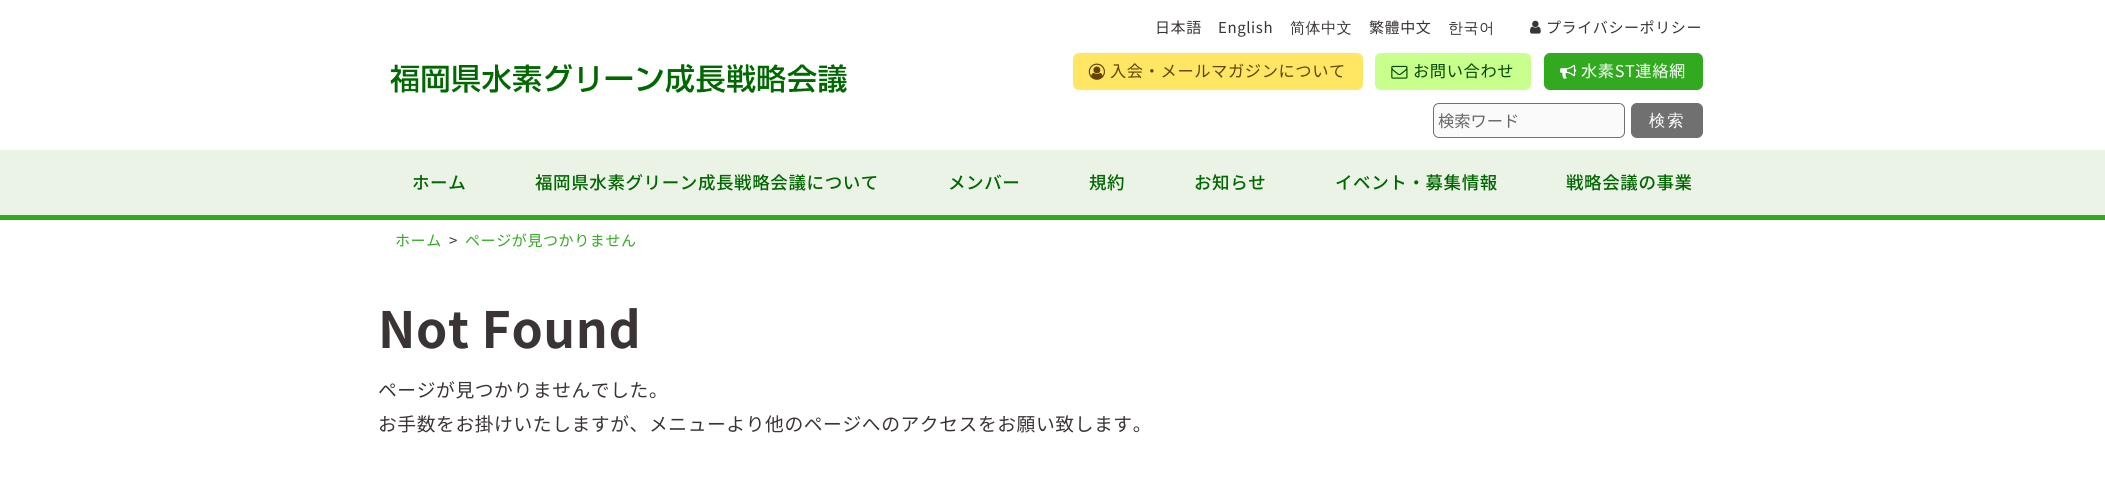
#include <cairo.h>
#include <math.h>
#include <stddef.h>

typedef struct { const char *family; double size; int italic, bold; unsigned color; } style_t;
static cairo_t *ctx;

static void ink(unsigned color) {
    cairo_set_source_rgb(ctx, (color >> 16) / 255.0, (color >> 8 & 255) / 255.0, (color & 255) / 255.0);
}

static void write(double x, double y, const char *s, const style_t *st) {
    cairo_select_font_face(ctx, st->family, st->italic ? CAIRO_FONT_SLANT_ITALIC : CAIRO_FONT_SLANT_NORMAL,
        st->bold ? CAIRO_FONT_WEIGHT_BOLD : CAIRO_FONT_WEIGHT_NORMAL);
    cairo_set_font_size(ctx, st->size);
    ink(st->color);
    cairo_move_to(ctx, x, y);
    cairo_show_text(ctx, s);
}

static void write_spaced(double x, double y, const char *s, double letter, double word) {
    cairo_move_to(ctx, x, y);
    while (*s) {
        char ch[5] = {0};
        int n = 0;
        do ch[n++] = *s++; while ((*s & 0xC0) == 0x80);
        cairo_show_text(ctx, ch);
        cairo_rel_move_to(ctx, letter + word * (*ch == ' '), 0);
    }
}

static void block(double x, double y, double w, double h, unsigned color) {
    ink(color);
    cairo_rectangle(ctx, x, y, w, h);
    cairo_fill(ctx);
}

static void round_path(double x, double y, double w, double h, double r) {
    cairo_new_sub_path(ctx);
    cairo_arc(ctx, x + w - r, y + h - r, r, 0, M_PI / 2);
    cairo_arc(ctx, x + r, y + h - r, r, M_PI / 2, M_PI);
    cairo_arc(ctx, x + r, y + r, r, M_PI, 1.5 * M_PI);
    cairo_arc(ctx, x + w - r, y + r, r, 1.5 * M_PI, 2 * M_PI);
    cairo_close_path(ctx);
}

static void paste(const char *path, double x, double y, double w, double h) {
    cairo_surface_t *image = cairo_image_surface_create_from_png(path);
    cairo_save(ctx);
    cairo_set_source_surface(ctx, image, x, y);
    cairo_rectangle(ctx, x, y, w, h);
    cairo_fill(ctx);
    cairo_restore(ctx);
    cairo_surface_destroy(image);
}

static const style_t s1 = {"Noto Sans JP", 16.25, 0, 0, 0x666666};

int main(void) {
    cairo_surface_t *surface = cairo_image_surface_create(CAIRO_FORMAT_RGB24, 2105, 496);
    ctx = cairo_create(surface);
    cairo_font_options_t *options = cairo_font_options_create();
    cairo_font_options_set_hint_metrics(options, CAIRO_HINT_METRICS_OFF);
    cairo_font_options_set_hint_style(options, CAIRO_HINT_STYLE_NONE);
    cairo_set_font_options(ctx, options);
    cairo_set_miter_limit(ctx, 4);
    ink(0xffffff);
    cairo_paint(ctx);
    paste("pic1.png", 390, 64, 457, 29);
    cairo_select_font_face(ctx, "Noto Sans JP", CAIRO_FONT_SLANT_NORMAL, CAIRO_FONT_WEIGHT_NORMAL);
    cairo_set_font_size(ctx, 15);
    ink(0x3a3534);
    write_spaced(1155, 33, "日本語", 0.6, 0);
    write_spaced(1218, 33, "English", 0.6, 0);
    cairo_select_font_face(ctx, "WenQuanYi Zen Hei Medium", CAIRO_FONT_SLANT_NORMAL, CAIRO_FONT_WEIGHT_NORMAL);
    write_spaced(1290, 33, "简体中文", 0.6, 0);
    cairo_select_font_face(ctx, "Noto Sans JP", CAIRO_FONT_SLANT_NORMAL, CAIRO_FONT_WEIGHT_NORMAL);
    write_spaced(1369, 33, "繁體中文", 0.6, 0);
    cairo_select_font_face(ctx, "WenQuanYi Zen Hei Medium", CAIRO_FONT_SLANT_NORMAL, CAIRO_FONT_WEIGHT_NORMAL);
    write_spaced(1448, 33, "한국어", 0.6, 0);
    paste("pic2.png", 1530, 20, 11, 14);
    cairo_select_font_face(ctx, "Noto Sans JP", CAIRO_FONT_SLANT_NORMAL, CAIRO_FONT_WEIGHT_NORMAL);
    write_spaced(1546, 33, "プライバシーポリシー", 0.6, 0);
    ink(0xffe663);
    round_path(1073, 53, 290, 37, 6);
    cairo_fill(ctx);
    paste("pic3.png", 1088, 63, 17, 17);
    cairo_set_font_size(ctx, 16.25);
    ink(0x634107);
    write_spaced(1110, 77, "入会・メールマガジンについて", 0.6, 0);
    ink(0xc9ff8c);
    round_path(1375, 53, 156, 37, 6);
    cairo_fill(ctx);
    paste("pic4.png", 1391, 65, 17, 14);
    ink(0x014700);
    write_spaced(1413, 77, "お問い合わせ", 0.6, 0);
    ink(0x31aa20);
    round_path(1544, 53, 159, 37, 6);
    cairo_fill(ctx);
    paste("pic5.png", 1560, 64, 17, 15);
    ink(0xffffff);
    write_spaced(1581, 77, "水素ST連絡網", 0.6, 0);
    ink(0xfafafa);
    round_path(1433.5, 103.5, 191, 34, 5.5);
    cairo_fill_preserve(ctx);
    ink(0x707070);
    cairo_set_line_width(ctx, 1);
    cairo_stroke(ctx);
    write(1438, 127, "検索ワード", &s1);
    ink(0x707070);
    round_path(1631.5, 103.5, 71, 34, 5.5);
    cairo_fill_preserve(ctx);
    cairo_stroke(ctx);
    cairo_select_font_face(ctx, "WenQuanYi Zen Hei Medium", CAIRO_FONT_SLANT_NORMAL, CAIRO_FONT_WEIGHT_NORMAL);
    ink(0xffffff);
    write_spaced(1649, 126, "検索", 2, 0);
    block(0, 150, 2105, 65, 0xebf2e6);
    block(0, 215, 2105, 5, 0x31aa20);
    cairo_select_font_face(ctx, "Noto Sans JP Medium", CAIRO_FONT_SLANT_NORMAL, CAIRO_FONT_WEIGHT_NORMAL);
    cairo_set_font_size(ctx, 17.5);
    ink(0x016700);
    write_spaced(412, 189, "ホーム", 0.6, 0);
    write_spaced(535, 189, "福岡県水素グリーン成長戦略会議について", 0.6, 0);
    write_spaced(948, 189, "メンバー", 0.6, 0);
    write_spaced(1089, 189, "規約", 0.6, 0);
    write_spaced(1194, 189, "お知らせ", 0.6, 0);
    write_spaced(1335, 189, "イベント・募集情報", 0.6, 0);
    write_spaced(1566, 189, "戦略会議の事業", 0.6, 0);
    cairo_select_font_face(ctx, "Noto Sans JP", CAIRO_FONT_SLANT_NORMAL, CAIRO_FONT_WEIGHT_NORMAL);
    cairo_set_font_size(ctx, 15);
    ink(0x31aa20);
    write_spaced(395, 246, "ホーム", 0.6, 0);
    ink(0x3a3534);
    write_spaced(449, 246, ">", 0.6, 0);
    ink(0x31aa20);
    write_spaced(465, 246, "ページが見つかりません", 0.6, 0);
    cairo_select_font_face(ctx, "Noto Sans JP", CAIRO_FONT_SLANT_NORMAL, CAIRO_FONT_WEIGHT_BOLD);
    cairo_set_font_size(ctx, 50);
    ink(0x3a3534);
    write_spaced(378, 348, "Not Found", 0.6, 0);
    cairo_select_font_face(ctx, "Noto Sans JP", CAIRO_FONT_SLANT_NORMAL, CAIRO_FONT_WEIGHT_NORMAL);
    cairo_set_font_size(ctx, 18.75);
    write_spaced(378, 397, "ページが見つかりませんでした。", 0.6, 0);
    write_spaced(378, 431, "お手数をお掛けいたしますが、メニューより他のページへのアクセスをお願い致します。", 0.6, 0);
    cairo_surface_write_to_png(surface, "screenshot.png");
    cairo_font_options_destroy(options);
    cairo_destroy(ctx);
    cairo_surface_destroy(surface);
    return 0;
}
